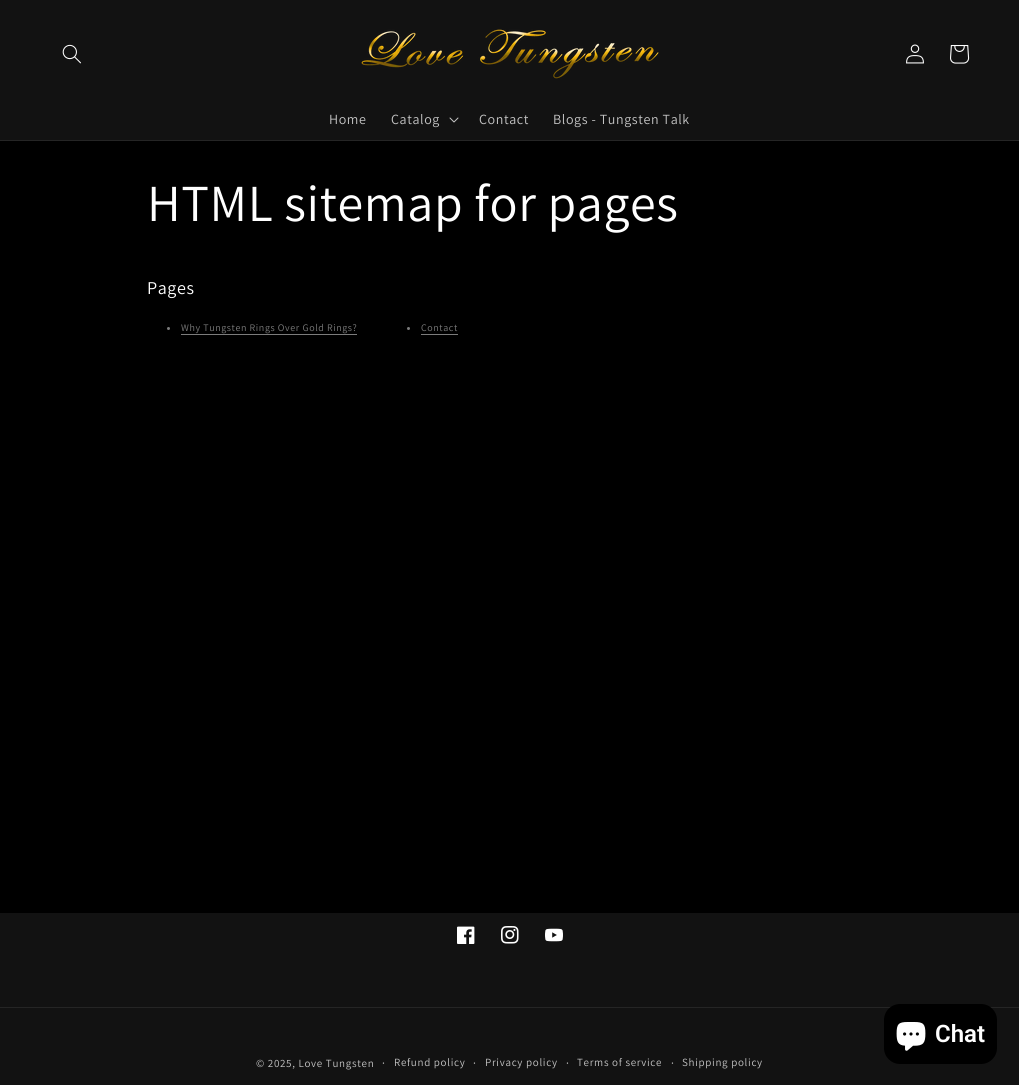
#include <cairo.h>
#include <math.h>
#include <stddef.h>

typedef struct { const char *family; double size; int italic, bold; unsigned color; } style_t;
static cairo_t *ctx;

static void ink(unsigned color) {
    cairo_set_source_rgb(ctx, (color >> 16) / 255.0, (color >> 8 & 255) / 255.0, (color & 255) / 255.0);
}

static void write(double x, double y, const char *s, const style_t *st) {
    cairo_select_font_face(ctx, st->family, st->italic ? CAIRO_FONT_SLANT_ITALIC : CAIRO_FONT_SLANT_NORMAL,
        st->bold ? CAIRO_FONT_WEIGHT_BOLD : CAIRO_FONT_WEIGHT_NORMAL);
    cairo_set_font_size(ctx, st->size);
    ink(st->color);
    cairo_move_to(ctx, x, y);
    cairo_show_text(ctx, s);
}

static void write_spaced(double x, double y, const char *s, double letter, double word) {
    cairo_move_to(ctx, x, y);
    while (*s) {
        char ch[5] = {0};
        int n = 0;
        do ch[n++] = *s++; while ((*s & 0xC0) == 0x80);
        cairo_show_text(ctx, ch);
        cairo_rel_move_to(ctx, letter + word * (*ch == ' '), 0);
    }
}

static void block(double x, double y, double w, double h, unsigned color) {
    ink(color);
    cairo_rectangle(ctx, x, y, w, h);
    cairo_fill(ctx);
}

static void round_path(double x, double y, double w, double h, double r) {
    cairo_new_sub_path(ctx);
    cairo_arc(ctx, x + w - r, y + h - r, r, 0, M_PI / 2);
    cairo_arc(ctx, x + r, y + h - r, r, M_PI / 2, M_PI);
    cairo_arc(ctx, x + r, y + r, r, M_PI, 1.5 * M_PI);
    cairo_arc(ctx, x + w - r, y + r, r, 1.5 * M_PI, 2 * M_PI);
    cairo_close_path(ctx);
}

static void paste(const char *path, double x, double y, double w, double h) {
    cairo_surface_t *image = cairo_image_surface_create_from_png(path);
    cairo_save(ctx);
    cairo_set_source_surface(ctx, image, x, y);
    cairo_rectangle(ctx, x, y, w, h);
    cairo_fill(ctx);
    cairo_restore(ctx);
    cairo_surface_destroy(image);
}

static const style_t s1 = {"Roboto SemiBold", 24, 0, 0, 0xffffff};

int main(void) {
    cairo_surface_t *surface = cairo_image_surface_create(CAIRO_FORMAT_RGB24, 1019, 1085);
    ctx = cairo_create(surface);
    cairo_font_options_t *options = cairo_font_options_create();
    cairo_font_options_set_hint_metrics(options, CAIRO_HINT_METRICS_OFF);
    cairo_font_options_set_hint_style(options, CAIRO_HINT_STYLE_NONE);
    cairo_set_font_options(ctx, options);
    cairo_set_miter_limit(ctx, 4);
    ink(0x000000);
    cairo_paint(ctx);
    block(0, 0, 1019, 140, 0x121212);
    block(0, 140, 1019, 1, 0x252525);
    paste("pic1.png", 62, 44, 19, 20);
    paste("pic2.png", 361, 29, 298, 50);
    paste("pic3.png", 906, 44, 18, 20);
    paste("pic4.png", 950, 45, 20, 19);
    cairo_select_font_face(ctx, "Assistant", CAIRO_FONT_SLANT_NORMAL, CAIRO_FONT_WEIGHT_NORMAL);
    cairo_set_font_size(ctx, 14);
    ink(0xc4c4c4);
    write_spaced(329, 124, "Home", 0.6, 0);
    write_spaced(391, 124, "Catalog", 0.6, 0);
    paste("pic5.png", 449, 117, 10, 6);
    write_spaced(479, 124, "Contact", 0.6, 0);
    write_spaced(553, 124, "Blogs - Tungsten Talk", 0.6, 0);
    cairo_set_font_size(ctx, 52);
    ink(0xffffff);
    write_spaced(147, 221, "HTML sitemap for pages", 0.6, 0);
    cairo_set_font_size(ctx, 18);
    write_spaced(147, 294, "Pages", 0.6, 0);
    ink(0x7c7c7c);
    cairo_new_path(ctx);
    cairo_arc(ctx, 168.5, 328.5, 1.5, 0, 2 * M_PI);
    cairo_fill(ctx);
    cairo_set_font_size(ctx, 10);
    write_spaced(181, 331, "Why Tungsten Rings Over Gold Rings?", 0.6, 0);
    block(181, 334, 176, 1, 0x7c7c7c);
    cairo_new_path(ctx);
    cairo_arc(ctx, 408.5, 328.5, 1.5, 0, 2 * M_PI);
    cairo_fill(ctx);
    write_spaced(421, 331, "Contact", 0.6, 0);
    block(421, 334, 37, 1, 0x7c7c7c);
    block(0, 913, 1019, 172, 0x121212);
    block(0, 1007, 1019, 1, 0x252525);
    ink(0x000000);
    round_path(884, 1004, 113, 60, 16);
    cairo_fill(ctx);
    paste("pic6.png", 896, 1022, 30, 29);
    write(935, 1042, "Chat", &s1);
    paste("pic7.png", 457, 926, 18, 18);
    paste("pic8.png", 501, 926, 18, 18);
    paste("pic9.png", 545, 928, 18, 14);
    cairo_select_font_face(ctx, "Assistant", CAIRO_FONT_SLANT_NORMAL, CAIRO_FONT_WEIGHT_NORMAL);
    cairo_set_font_size(ctx, 11);
    ink(0xc4c4c4);
    write_spaced(256, 1067, "© 2025, Love Tungsten", 0.7, 0);
    cairo_set_font_size(ctx, 12);
    write_spaced(382, 1067, "·", 0.7, 0);
    cairo_set_font_size(ctx, 11);
    write_spaced(394, 1066, "Refund policy", 0.7, 0);
    cairo_set_font_size(ctx, 12);
    write_spaced(473, 1067, "·", 0.7, 0);
    cairo_set_font_size(ctx, 11);
    write_spaced(485, 1066, "Privacy policy", 0.7, 0);
    cairo_set_font_size(ctx, 12);
    write_spaced(566, 1067, "·", 0.7, 0);
    cairo_set_font_size(ctx, 11);
    write_spaced(577, 1066, "Terms of service", 0.7, 0);
    cairo_set_font_size(ctx, 12);
    write_spaced(671, 1067, "·", 0.7, 0);
    cairo_set_font_size(ctx, 11);
    write_spaced(682, 1066, "Shipping policy", 0.7, 0);
    cairo_surface_write_to_png(surface, "screenshot.png");
    cairo_font_options_destroy(options);
    cairo_destroy(ctx);
    cairo_surface_destroy(surface);
    return 0;
}
